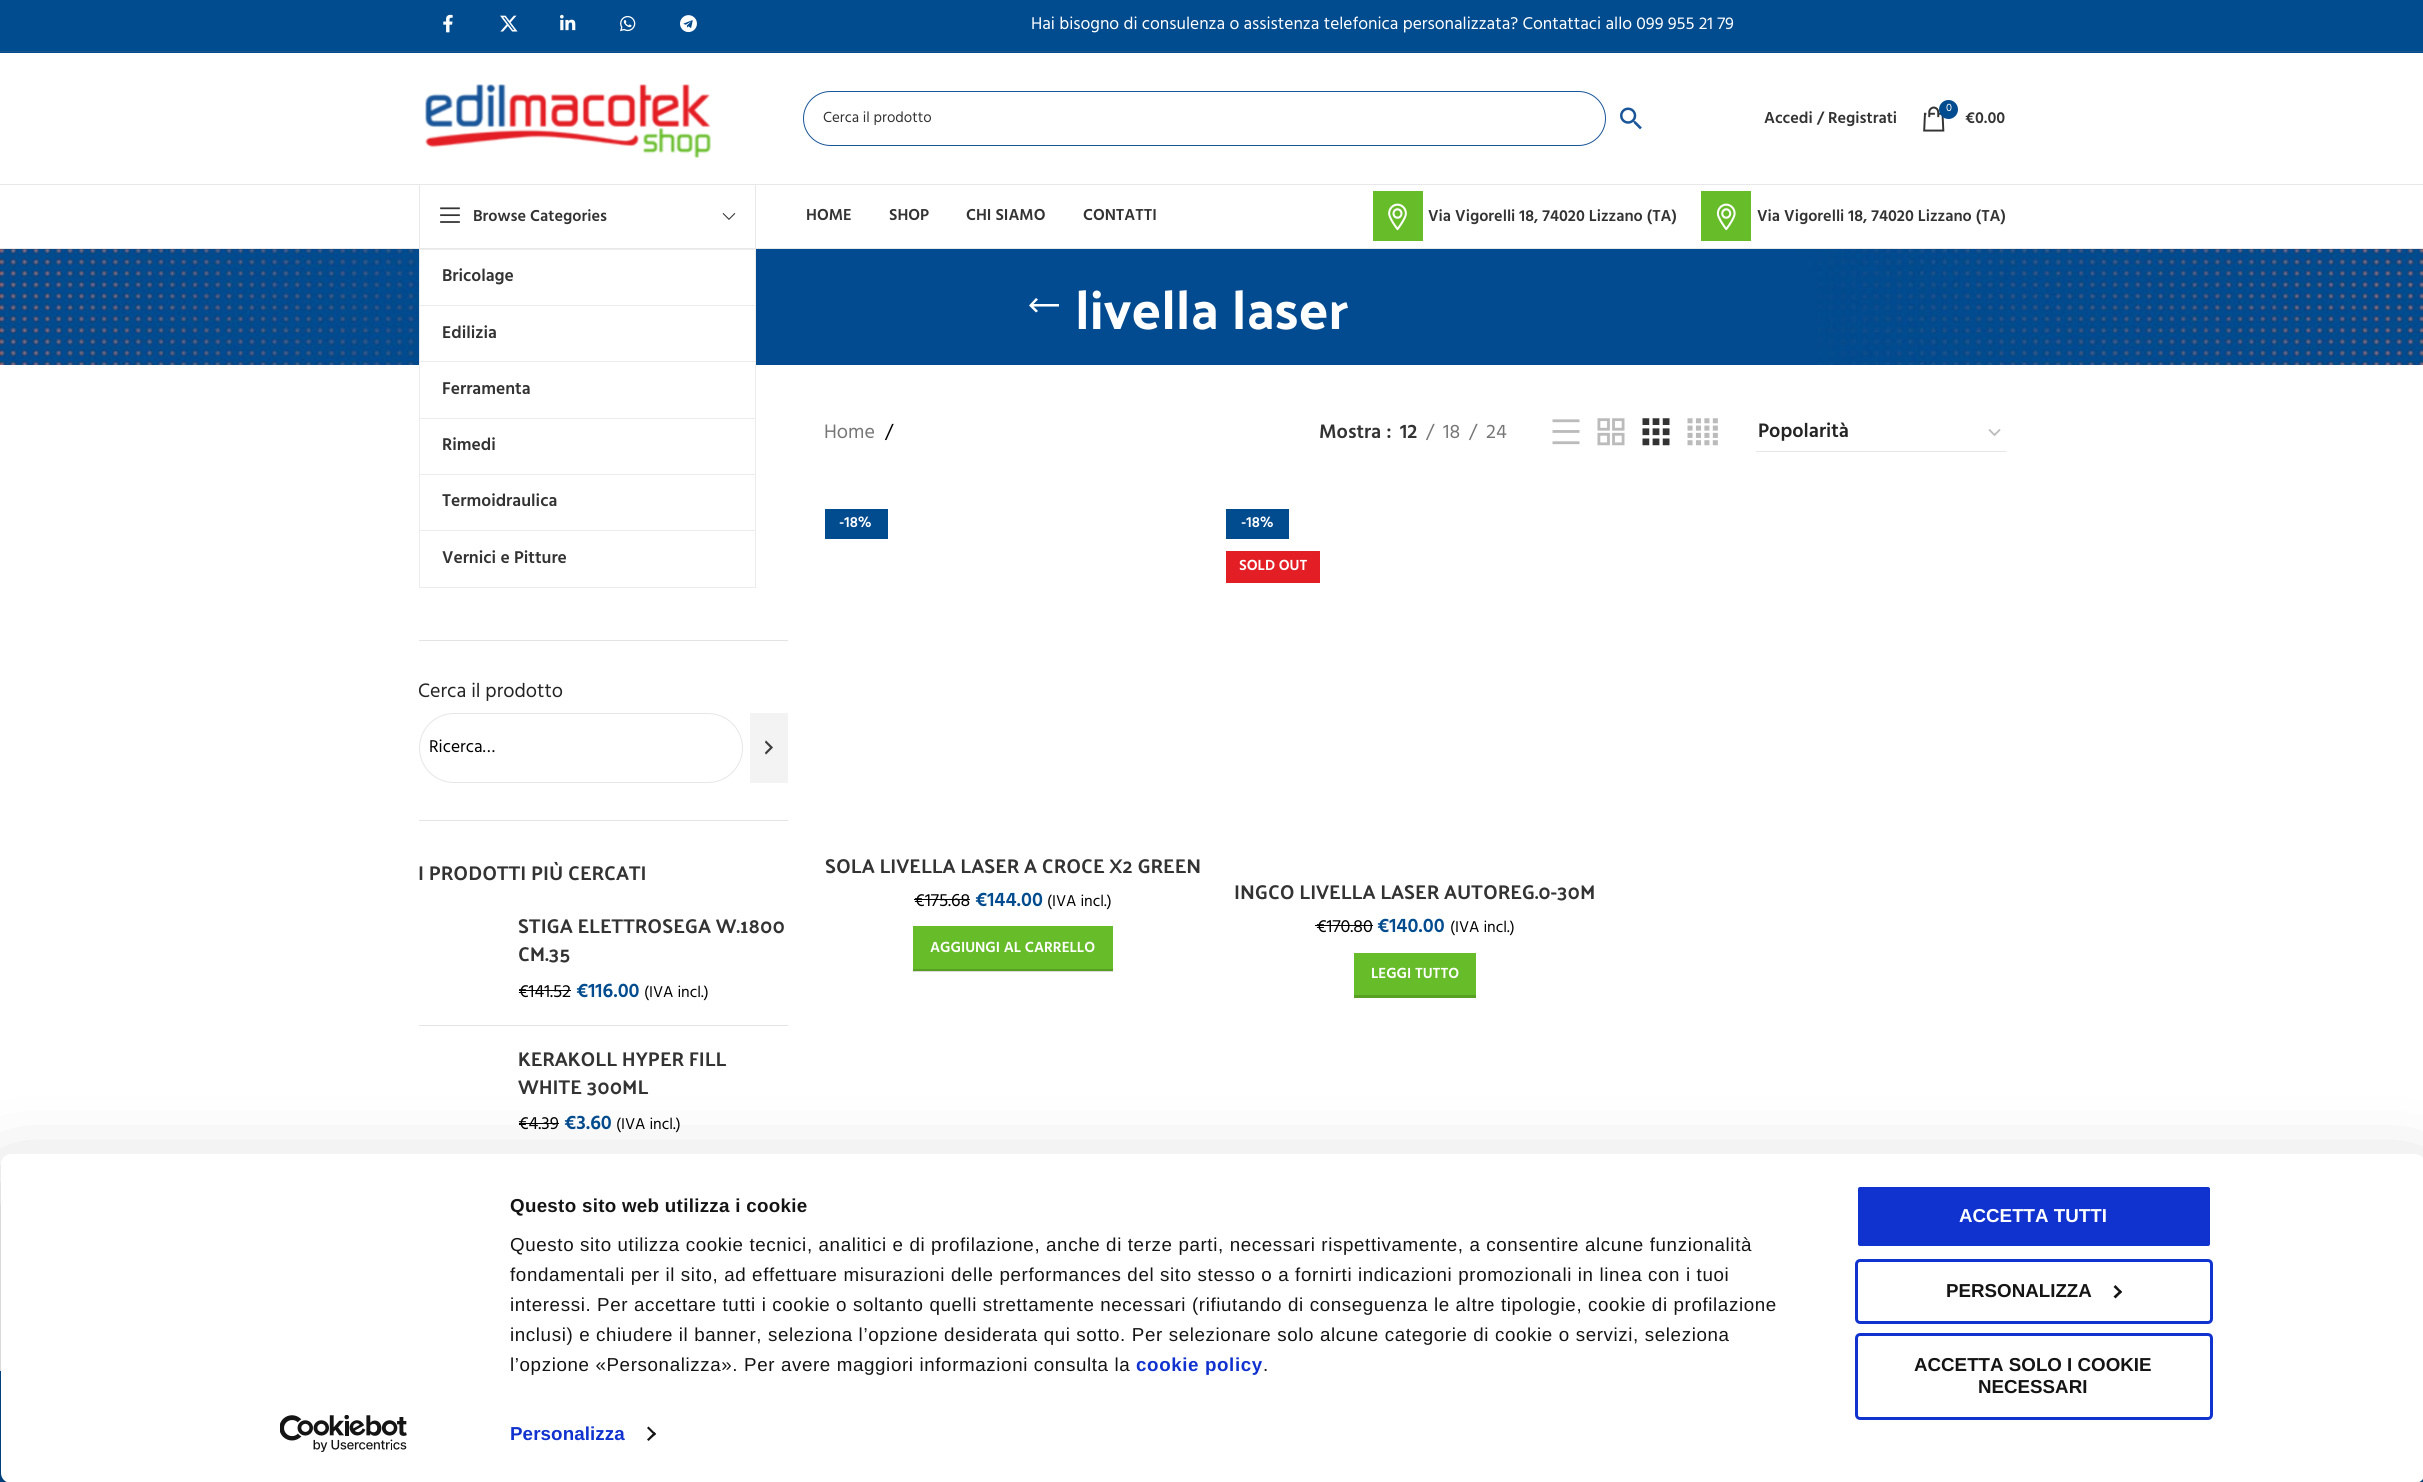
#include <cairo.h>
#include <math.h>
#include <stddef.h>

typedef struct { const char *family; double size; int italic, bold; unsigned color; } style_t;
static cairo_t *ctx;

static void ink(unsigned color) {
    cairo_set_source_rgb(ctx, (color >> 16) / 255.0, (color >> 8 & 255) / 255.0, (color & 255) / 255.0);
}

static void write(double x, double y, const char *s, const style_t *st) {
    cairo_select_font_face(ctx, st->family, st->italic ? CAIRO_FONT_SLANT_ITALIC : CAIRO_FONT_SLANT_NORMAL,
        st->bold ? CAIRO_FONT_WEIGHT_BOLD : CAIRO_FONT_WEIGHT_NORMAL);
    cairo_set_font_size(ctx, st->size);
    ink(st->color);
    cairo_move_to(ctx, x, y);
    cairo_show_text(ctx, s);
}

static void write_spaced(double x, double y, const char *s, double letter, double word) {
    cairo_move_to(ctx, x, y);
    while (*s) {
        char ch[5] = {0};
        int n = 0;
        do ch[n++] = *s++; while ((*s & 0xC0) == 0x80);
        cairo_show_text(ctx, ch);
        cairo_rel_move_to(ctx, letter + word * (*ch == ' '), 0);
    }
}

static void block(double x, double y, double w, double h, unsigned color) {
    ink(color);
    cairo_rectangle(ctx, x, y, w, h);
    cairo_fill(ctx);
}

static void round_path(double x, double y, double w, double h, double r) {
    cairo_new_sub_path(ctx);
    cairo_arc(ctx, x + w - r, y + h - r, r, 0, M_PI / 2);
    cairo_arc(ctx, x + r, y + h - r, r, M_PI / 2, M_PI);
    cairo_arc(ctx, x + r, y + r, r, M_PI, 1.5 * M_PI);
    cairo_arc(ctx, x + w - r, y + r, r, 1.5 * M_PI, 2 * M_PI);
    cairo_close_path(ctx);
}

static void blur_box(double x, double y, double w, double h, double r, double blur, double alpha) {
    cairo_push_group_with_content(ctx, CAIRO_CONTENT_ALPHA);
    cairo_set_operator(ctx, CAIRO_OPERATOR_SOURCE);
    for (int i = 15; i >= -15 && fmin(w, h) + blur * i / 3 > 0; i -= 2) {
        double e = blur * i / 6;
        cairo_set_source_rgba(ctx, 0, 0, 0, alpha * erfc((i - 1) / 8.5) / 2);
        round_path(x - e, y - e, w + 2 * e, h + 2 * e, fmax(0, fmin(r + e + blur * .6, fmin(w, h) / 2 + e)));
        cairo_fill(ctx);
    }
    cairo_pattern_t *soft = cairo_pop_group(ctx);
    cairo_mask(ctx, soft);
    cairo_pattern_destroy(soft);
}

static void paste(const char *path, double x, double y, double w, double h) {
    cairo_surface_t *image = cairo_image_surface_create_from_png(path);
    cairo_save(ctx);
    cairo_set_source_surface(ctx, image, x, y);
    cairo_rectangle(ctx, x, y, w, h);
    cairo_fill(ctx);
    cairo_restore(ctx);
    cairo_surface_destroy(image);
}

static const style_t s1 = {"Hind", 17.5, 0, 0, 0xffffff};
static const style_t s2 = {"Hind", 15, 0, 0, 0x333333};
static const style_t s3 = {"Hind SemiBold", 16.25, 0, 0, 0x333333};
static const style_t s4 = {"Hind", 11, 0, 0, 0xffffff};
static const style_t s5 = {"Hind SemiBold", 17.5, 0, 0, 0x333333};
static const style_t s6 = {"Palanquin Dark", 55, 0, 0, 0xffffff};
static const style_t s7 = {"Hind", 20, 0, 0, 0x242424};
static const style_t s8 = {"Hind", 17.5, 0, 0, 0x000000};
static const style_t s9 = {"Palanquin Dark", 20, 0, 0, 0x333333};
static const style_t s10 = {"Hind", 18, 0, 0, 0x000000};
static const style_t s11 = {"Hind SemiBold", 20, 0, 0, 0x014b8f};
static const style_t s12 = {"Hind", 16, 0, 0, 0x000000};
static const style_t s13 = {"Hind", 20, 0, 0, 0x767676};
static const style_t s14 = {"Hind", 20, 0, 0, 0x000000};
static const style_t s15 = {"Hind SemiBold", 20, 0, 0, 0x333333};
static const style_t s16 = {"Hind SemiBold", 20, 0, 0, 0x242424};
static const style_t s17 = {"Hind SemiBold", 15, 0, 0, 0xffffff};
static const style_t s18 = {"Liberation Sans", 18.75, 0, 1, 0xffffff};
static const style_t s19 = {"Liberation Sans", 18.75, 0, 1, 0x141414};

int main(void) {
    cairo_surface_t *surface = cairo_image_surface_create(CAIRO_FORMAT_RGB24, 2423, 1482);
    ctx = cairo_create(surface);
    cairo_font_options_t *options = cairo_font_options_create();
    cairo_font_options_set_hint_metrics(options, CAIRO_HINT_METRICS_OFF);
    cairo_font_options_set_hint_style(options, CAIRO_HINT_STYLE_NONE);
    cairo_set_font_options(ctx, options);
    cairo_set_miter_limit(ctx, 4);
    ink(0xffffff);
    cairo_paint(ctx);
    block(913, 971, 200, 1, 0xd9d9d9);
    block(0, 0, 2423, 53, 0x014b8f);
    block(0, 51, 2423, 1, 0x1b568a);
    paste("pic1.png", 443, 14, 10, 19);
    paste("pic2.png", 500, 15, 18, 17);
    paste("pic3.png", 560, 14, 16, 17);
    paste("pic4.png", 620, 15, 16, 17);
    paste("pic5.png", 680, 15, 17, 18);
    write(1031, 29, "Hai bisogno di consulenza o assistenza telefonica personalizzata? Contattaci allo 099 955 21 79", &s1);
    block(0, 184, 2423, 1, 0xe8e8e8);
    paste("pic6.png", 425, 84, 286, 74);
    round_path(803.5, 91.5, 802, 54, 27);
    ink(0x195599);
    cairo_set_line_width(ctx, 1);
    cairo_stroke(ctx);
    write(823, 122, "Cerca il prodotto", &s2);
    paste("pic7.png", 1620, 107, 22, 23);
    write(1764, 123, "Accedi / Registrati", &s3);
    paste("pic8.png", 1923, 106, 22, 26);
    ink(0x014b8f);
    cairo_arc(ctx, 1948.5, 109.5, 9.5, 0, 2 * M_PI);
    cairo_fill(ctx);
    write(1946, 111, "0", &s4);
    write(1965, 123, "€0.00", &s3);
    block(0, 248, 2423, 1, 0xe8e8e8);
    cairo_rectangle(ctx, 419.5, 184.5, 336, 64);
    cairo_stroke(ctx);
    paste("pic9.png", 440, 207, 20, 16);
    write(473, 221, "Browse Categories", &s3);
    paste("pic10.png", 722, 213, 14, 7);
    paste("pic13.png", 0, 249, 2423, 116);
    block(420, 250, 335, 115, 0xffffff);
    cairo_rectangle(ctx, 419.5, 249.5, 336, 338);
    ink(0xececec);
    cairo_stroke(ctx);
    block(420, 305, 335, 1, 0xececec);
    write(442, 281, "Bricolage", &s5);
    block(420, 361, 335, 1, 0xececec);
    write(442, 338, "Edilizia", &s5);
    block(420, 418, 335, 1, 0xececec);
    write(442, 394, "Ferramenta", &s5);
    block(420, 474, 335, 1, 0xececec);
    write(442, 450, "Rimedi", &s5);
    block(420, 530, 335, 1, 0xececec);
    write(442, 506, "Termoidraulica", &s5);
    write(442, 563, "Vernici e Pitture", &s5);
    write(806, 220, "HOME", &s3);
    write(889, 220, "SHOP", &s3);
    write(966, 220, "CHI SIAMO", &s3);
    write(1083, 220, "CONTATTI", &s3);
    paste("pic11.png", 1373, 191, 50, 50);
    write(1428, 221, "Via Vigorelli 18, 74020 Lizzano (TA)", &s3);
    paste("pic12.png", 1701, 191, 50, 50);
    write(1757, 221, "Via Vigorelli 18, 74020 Lizzano (TA)", &s3);
    ink(0xffffff);
    cairo_new_path(ctx);
    cairo_move_to(ctx, 1038, 311);
    cairo_line_to(ctx, 1033.5, 306.5);
    cairo_line_to(ctx, 1059, 306.5);
    cairo_line_to(ctx, 1059, 304);
    cairo_line_to(ctx, 1033.5, 304);
    cairo_line_to(ctx, 1038, 299.5);
    cairo_line_to(ctx, 1036, 298);
    cairo_line_to(ctx, 1029, 305.5);
    cairo_line_to(ctx, 1036, 312.5);
    cairo_close_path(ctx);
    cairo_fill(ctx);
    write(1075, 329, "livella laser", &s6);
    block(419, 640, 369, 1, 0xe4e4e4);
    block(419, 820, 369, 1, 0xe4e4e4);
    write(418, 697, "Cerca il prodotto", &s7);
    round_path(419.5, 713.5, 323, 69, 34.5);
    ink(0xe6e6e6);
    cairo_stroke(ctx);
    write(429, 752, "Ricerca…", &s8);
    block(750, 713, 38, 70, 0xf3f3f3);
    paste("pic14.png", 765, 740, 8, 15);
    write(418, 880, "I PRODOTTI PIÙ CERCATI", &s9);
    block(419, 1025, 369, 1, 0xe4e4e4);
    write(518, 933, "STIGA ELETTROSEGA W.1800", &s9);
    write(518, 961, "CM.35", &s9);
    write(518, 997, "€141.52", &s10);
    block(519, 990, 52, 1, 0x000000);
    write(576, 997, "€116.00", &s11);
    write(644, 997, "(IVA incl.)", &s12);
    write(518, 1066, "KERAKOLL HYPER FILL", &s9);
    write(518, 1094, "WHITE 300ML", &s9);
    write(518, 1129, "€4.39", &s10);
    block(519, 1123, 40, 1, 0x000000);
    write(564, 1129, "€3.60", &s11);
    write(616, 1129, "(IVA incl.)", &s12);
    write(824, 438, "Home", &s13);
    write(885, 438, "/", &s14);
    write(1319, 438, "Mostra :", &s15);
    write(1400, 438, "12", &s15);
    write(1426, 438, "/", &s13);
    write(1443, 438, "18", &s13);
    write(1469, 438, "/", &s13);
    write(1486, 438, "24", &s13);
    paste("pic15.png", 1552, 419, 28, 26);
    paste("pic16.png", 1597, 418, 28, 28);
    paste("pic17.png", 1642, 418, 28, 28);
    paste("pic18.png", 1687, 418, 31, 28);
    cairo_new_path(ctx);
    cairo_move_to(ctx, 1989, 429.5);
    cairo_line_to(ctx, 1994.5, 435);
    cairo_line_to(ctx, 2000, 429.5);
    ink(0xbbbbbb);
    cairo_set_line_width(ctx, 1.8);
    cairo_stroke(ctx);
    block(1756, 451, 250, 1, 0xe6e6e6);
    write(1758, 437, "Popolarità", &s16);
    block(825, 509, 63, 30, 0x014b8f);
    write(839, 527, "-18%", &s17);
    write(825, 873, "SOLA LIVELLA LASER A CROCE X2 GREEN", &s9);
    write(914, 906, "€", &s10);
    block(914, 899, 11, 1, 0x000000);
    write(925, 906, "175.68", &s10);
    block(925, 899, 45, 1, 0x000000);
    write(975, 906, "€144.00", &s11);
    write(1047, 906, "(IVA incl.)", &s12);
    block(913, 926, 200, 43, 0x66bc29);
    block(913, 969, 200, 2, 0x57a023);
    write(930, 952, "AGGIUNGI AL CARRELLO", &s17);
    block(1226, 509, 63, 30, 0x014b8f);
    write(1241, 527, "-18%", &s17);
    block(1226, 551, 94, 32, 0xe31e24);
    write(1239, 570, "SOLD OUT", &s17);
    write(1234, 899, "INGCO LIVELLA LASER AUTOREG.0-30M", &s9);
    write(1316, 932, "€170.80", &s10);
    block(1315, 925, 58, 1, 0x000000);
    write(1377, 932, "€140.00", &s11);
    write(1450, 932, "(IVA incl.)", &s12);
    block(1354, 953, 122, 42, 0x66bc29);
    block(1354, 995, 122, 3, 0x57a023);
    write(1371, 978, "LEGGI TUTTO", &s17);
    block(0, 1371, 2423, 111, 0x014b8f);
    ink(0x000000);
    blur_box(1, 1191, 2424, 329, 10, 44, 0.3);
    ink(0xffffff);
    round_path(1, 1154, 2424, 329, 10);
    cairo_fill(ctx);
    cairo_select_font_face(ctx, "Liberation Sans", CAIRO_FONT_SLANT_NORMAL, CAIRO_FONT_WEIGHT_BOLD);
    cairo_set_font_size(ctx, 18.75);
    ink(0x141414);
    write_spaced(510, 1212, "Questo sito web utilizza i cookie", 0.3, 0);
    cairo_select_font_face(ctx, "Liberation Sans", CAIRO_FONT_SLANT_NORMAL, CAIRO_FONT_WEIGHT_NORMAL);
    write_spaced(510, 1251, "Questo sito utilizza cookie tecnici, analitici e di profilazione, anche di terze parti, necessari rispettivamente, a consentire alcune funzionalità", 0.62, 0);
    write_spaced(510, 1281, "fondamentali per il sito, ad effettuare misurazioni delle performances del sito stesso o a fornirti indicazioni promozionali in linea con i tuoi", 0.62, 0);
    write_spaced(510, 1311, "interessi. Per accettare tutti i cookie o soltanto quelli strettamente necessari (rifiutando di conseguenza le altre tipologie, cookie di profilazione", 0.62, 0);
    write_spaced(510, 1341, "inclusi) e chiudere il banner, seleziona l’opzione desiderata qui sotto. Per selezionare solo alcune categorie di cookie o servizi, seleziona", 0.62, 0);
    write_spaced(510, 1371, "l’opzione «Personalizza». Per avere maggiori informazioni consulta la", 0.62, 0);
    cairo_select_font_face(ctx, "Liberation Sans", CAIRO_FONT_SLANT_NORMAL, CAIRO_FONT_WEIGHT_BOLD);
    ink(0x1032cf);
    write_spaced(1136, 1371, "cookie policy", 0.62, 0);
    cairo_select_font_face(ctx, "Liberation Sans", CAIRO_FONT_SLANT_NORMAL, CAIRO_FONT_WEIGHT_NORMAL);
    ink(0x141414);
    write_spaced(1263, 1371, ".", 0.62, 0);
    cairo_select_font_face(ctx, "Liberation Sans", CAIRO_FONT_SLANT_NORMAL, CAIRO_FONT_WEIGHT_BOLD);
    ink(0x1032cf);
    write_spaced(510, 1440, "Personalizza", 0.1, 0);
    ink(0x141414);
    cairo_new_path(ctx);
    cairo_move_to(ctx, 648.5, 1426.5);
    cairo_line_to(ctx, 656, 1434);
    cairo_line_to(ctx, 654.5, 1435.5);
    cairo_line_to(ctx, 647, 1428);
    cairo_close_path(ctx);
    cairo_fill(ctx);
    cairo_new_path(ctx);
    cairo_move_to(ctx, 654.5, 1432);
    cairo_line_to(ctx, 656, 1434);
    cairo_line_to(ctx, 648.5, 1441);
    cairo_line_to(ctx, 647, 1439.5);
    cairo_close_path(ctx);
    cairo_fill(ctx);
    ink(0x1032cf);
    round_path(1856.5, 1185.5, 355, 62, 3.5);
    cairo_fill_preserve(ctx);
    ink(0xffffff);
    cairo_set_line_width(ctx, 3);
    cairo_stroke(ctx);
    write(1959, 1222, "ACCETTA TUTTI", &s18);
    round_path(1856.5, 1260.5, 355, 62, 3.5);
    ink(0x1032cf);
    cairo_stroke(ctx);
    write(1946, 1297, "PERSONALIZZA", &s19);
    cairo_new_path(ctx);
    cairo_move_to(ctx, 2115.5, 1285);
    cairo_line_to(ctx, 2122, 1292);
    cairo_line_to(ctx, 2120.5, 1293.5);
    cairo_line_to(ctx, 2113.5, 1287);
    cairo_close_path(ctx);
    cairo_fill(ctx);
    cairo_new_path(ctx);
    cairo_move_to(ctx, 2120.5, 1290);
    cairo_line_to(ctx, 2122, 1292);
    cairo_line_to(ctx, 2115.5, 1298.5);
    cairo_line_to(ctx, 2113.5, 1296.5);
    cairo_close_path(ctx);
    cairo_fill(ctx);
    round_path(1856.5, 1334.5, 355, 84, 3.5);
    ink(0x1032cf);
    cairo_stroke(ctx);
    write(1914, 1371, "ACCETTA SOLO I COOKIE", &s19);
    write(1978, 1393, "NECESSARI", &s19);
    paste("pic19.png", 280, 1415, 127, 37);
    cairo_surface_write_to_png(surface, "screenshot.png");
    cairo_font_options_destroy(options);
    cairo_destroy(ctx);
    cairo_surface_destroy(surface);
    return 0;
}
